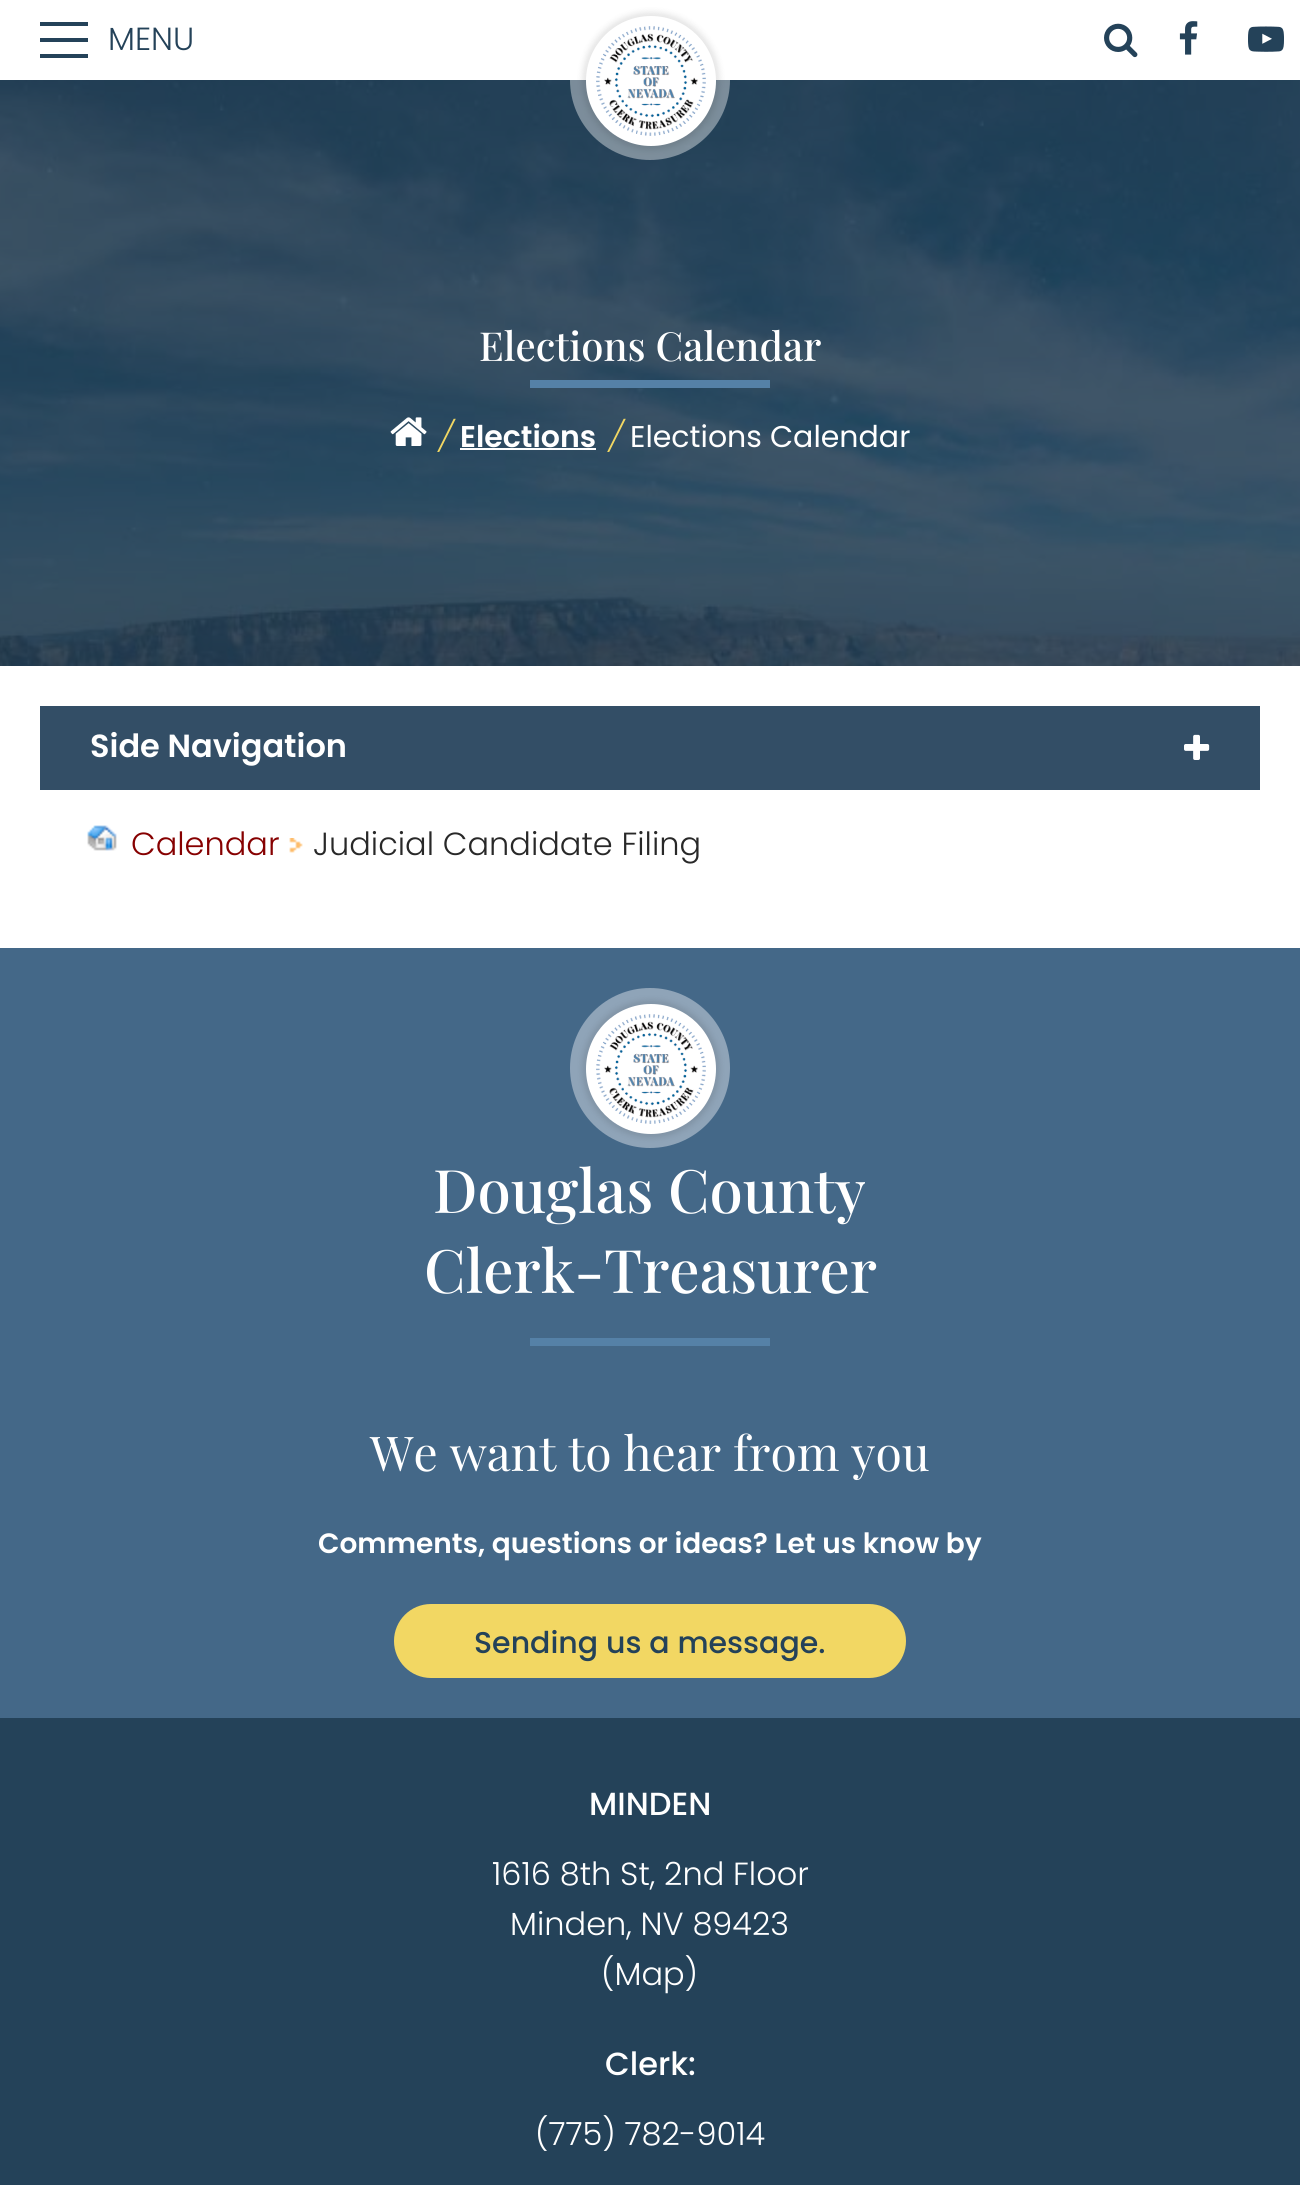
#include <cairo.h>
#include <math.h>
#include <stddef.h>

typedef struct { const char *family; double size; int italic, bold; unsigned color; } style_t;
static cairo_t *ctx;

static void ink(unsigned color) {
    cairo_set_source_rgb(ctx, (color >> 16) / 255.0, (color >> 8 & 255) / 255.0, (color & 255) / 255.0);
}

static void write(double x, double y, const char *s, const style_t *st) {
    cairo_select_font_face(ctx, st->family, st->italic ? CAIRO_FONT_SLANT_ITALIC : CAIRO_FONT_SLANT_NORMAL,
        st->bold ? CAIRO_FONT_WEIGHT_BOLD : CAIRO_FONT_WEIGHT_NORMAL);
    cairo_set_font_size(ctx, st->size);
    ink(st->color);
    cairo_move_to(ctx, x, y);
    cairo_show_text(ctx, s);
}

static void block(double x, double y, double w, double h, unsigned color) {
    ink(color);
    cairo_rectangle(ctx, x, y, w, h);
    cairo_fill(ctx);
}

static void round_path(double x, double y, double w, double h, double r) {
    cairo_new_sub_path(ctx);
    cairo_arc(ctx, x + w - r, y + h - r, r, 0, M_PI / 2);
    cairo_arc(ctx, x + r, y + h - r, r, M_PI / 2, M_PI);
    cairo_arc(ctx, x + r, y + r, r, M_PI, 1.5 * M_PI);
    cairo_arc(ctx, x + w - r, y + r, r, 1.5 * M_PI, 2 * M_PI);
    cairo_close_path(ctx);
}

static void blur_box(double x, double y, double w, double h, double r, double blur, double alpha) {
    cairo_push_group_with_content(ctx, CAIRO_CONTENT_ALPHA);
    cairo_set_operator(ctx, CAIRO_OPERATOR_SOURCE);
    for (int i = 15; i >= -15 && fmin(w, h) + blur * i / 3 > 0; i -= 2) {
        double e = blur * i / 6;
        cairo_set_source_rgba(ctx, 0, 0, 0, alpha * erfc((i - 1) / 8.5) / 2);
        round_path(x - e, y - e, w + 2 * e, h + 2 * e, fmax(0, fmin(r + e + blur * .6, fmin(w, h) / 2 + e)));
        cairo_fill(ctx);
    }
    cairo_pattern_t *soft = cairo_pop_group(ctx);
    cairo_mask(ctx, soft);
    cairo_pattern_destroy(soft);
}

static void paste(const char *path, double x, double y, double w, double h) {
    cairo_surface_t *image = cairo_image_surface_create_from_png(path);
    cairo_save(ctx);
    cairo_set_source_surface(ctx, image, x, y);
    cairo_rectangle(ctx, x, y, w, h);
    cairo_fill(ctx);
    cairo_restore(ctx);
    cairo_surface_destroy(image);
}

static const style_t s1 = {"Poppins Light", 32, 0, 0, 0x244259};
static const style_t s2 = {"Playfair Display Medium", 40, 0, 0, 0xffffff};
static const style_t s3 = {"Poppins Light", 30, 1, 0, 0xf2d763};
static const style_t s4 = {"Poppins SemiBold", 30, 0, 0, 0xffffff};
static const style_t s5 = {"Poppins", 30, 0, 0, 0xffffff};
static const style_t s6 = {"Poppins SemiBold", 32, 0, 0, 0xffffff};
static const style_t s7 = {"Poppins Light", 32, 0, 0, 0x860000};
static const style_t s8 = {"Poppins Light", 32, 0, 0, 0x282828};
static const style_t s9 = {"Playfair Display Medium", 60, 0, 0, 0xffffff};
static const style_t s10 = {"Playfair Display", 48, 0, 0, 0xffffff};
static const style_t s11 = {"Poppins SemiBold", 28, 0, 0, 0xffffff};
static const style_t s12 = {"Poppins Medium", 30, 0, 0, 0x244259};
static const style_t s13 = {"Poppins Medium", 32, 0, 0, 0xffffff};
static const style_t s14 = {"Poppins Light", 32, 0, 0, 0xffffff};

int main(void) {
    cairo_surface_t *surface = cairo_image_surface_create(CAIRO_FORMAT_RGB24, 1300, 2185);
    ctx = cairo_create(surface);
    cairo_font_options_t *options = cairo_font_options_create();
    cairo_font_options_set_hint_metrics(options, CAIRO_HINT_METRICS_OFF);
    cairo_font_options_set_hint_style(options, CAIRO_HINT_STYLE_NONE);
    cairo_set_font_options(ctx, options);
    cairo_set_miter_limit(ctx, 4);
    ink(0xffffff);
    cairo_paint(ctx);
    block(40, 38, 48, 4, 0x244259);
    block(40, 22, 48, 4, 0x244259);
    block(40, 54, 48, 4, 0x244259);
    write(108, 50, "MENU", &s1);
    paste("pic5.png", 0, 80, 1300, 586);
    cairo_set_source_rgba(ctx, 1, 1, 1, 0.4);
    cairo_arc(ctx, 650, 80, 80, 0, 2 * M_PI);
    cairo_fill(ctx);
    ink(0x000000);
    blur_box(582, 12, 138, 138, 69, 3, 0.1);
    ink(0xffffff);
    cairo_arc(ctx, 651, 81, 65, 0, 2 * M_PI);
    cairo_fill(ctx);
    paste("pic1.png", 596, 26, 110, 110);
    paste("pic2.png", 1104, 23, 34, 35);
    paste("pic3.png", 1179, 21, 19, 34);
    paste("pic4.png", 1248, 26, 36, 26);
    write(479, 361, "Elections Calendar", &s2);
    block(530, 380, 240, 8, 0x5581a7);
    paste("pic6.png", 390, 417, 37, 29);
    write(437, 447, "/", &s3);
    write(460, 447, "Elections", &s4);
    block(460, 448, 136, 2, 0xffffff);
    write(607, 447, "/", &s3);
    write(630, 447, "Elections Calendar", &s5);
    block(40, 706, 1220, 84, 0x334e66);
    write(90, 757, "Side Navigation", &s6);
    paste("pic7.png", 1184, 734, 26, 26);
    paste("pic8.png", 87, 825, 30, 26);
    write(131, 855, "Calendar", &s7);
    paste("pic9.png", 289, 838, 14, 15);
    write(313, 855, "Judicial Candidate Filing", &s8);
    block(0, 948, 1300, 770, 0x446888);
    ink(0x8fa4b8);
    cairo_new_path(ctx);
    cairo_arc(ctx, 650, 1068, 80, 0, 2 * M_PI);
    cairo_fill(ctx);
    ink(0x000000);
    blur_box(582, 1000, 138, 138, 69, 3, 0.1);
    ink(0xffffff);
    cairo_arc(ctx, 651, 1069, 65, 0, 2 * M_PI);
    cairo_fill(ctx);
    paste("pic10.png", 596, 1014, 110, 110);
    write(433, 1213, "Douglas County", &s9);
    write(424, 1293, "Clerk-Treasurer", &s9);
    block(530, 1338, 240, 8, 0x5581a7);
    write(370, 1471, "We want to hear from you", &s10);
    write(318, 1553, "Comments, questions or ideas? Let us know by", &s11);
    ink(0xf2d763);
    round_path(394, 1604, 512, 74, 37);
    cairo_fill(ctx);
    write(474, 1653, "Sending us a message.", &s12);
    block(0, 1718, 1300, 467, 0x244259);
    write(589, 1815, "MINDEN", &s13);
    write(492, 1885, "1616 8th St, 2nd Floor", &s14);
    write(510, 1935, "Minden, NV 89423", &s14);
    write(601, 1985, "(Map)", &s14);
    write(605, 2075, "Clerk:", &s13);
    write(535, 2145, "(775) 782-9014", &s14);
    cairo_surface_write_to_png(surface, "screenshot.png");
    cairo_font_options_destroy(options);
    cairo_destroy(ctx);
    cairo_surface_destroy(surface);
    return 0;
}
